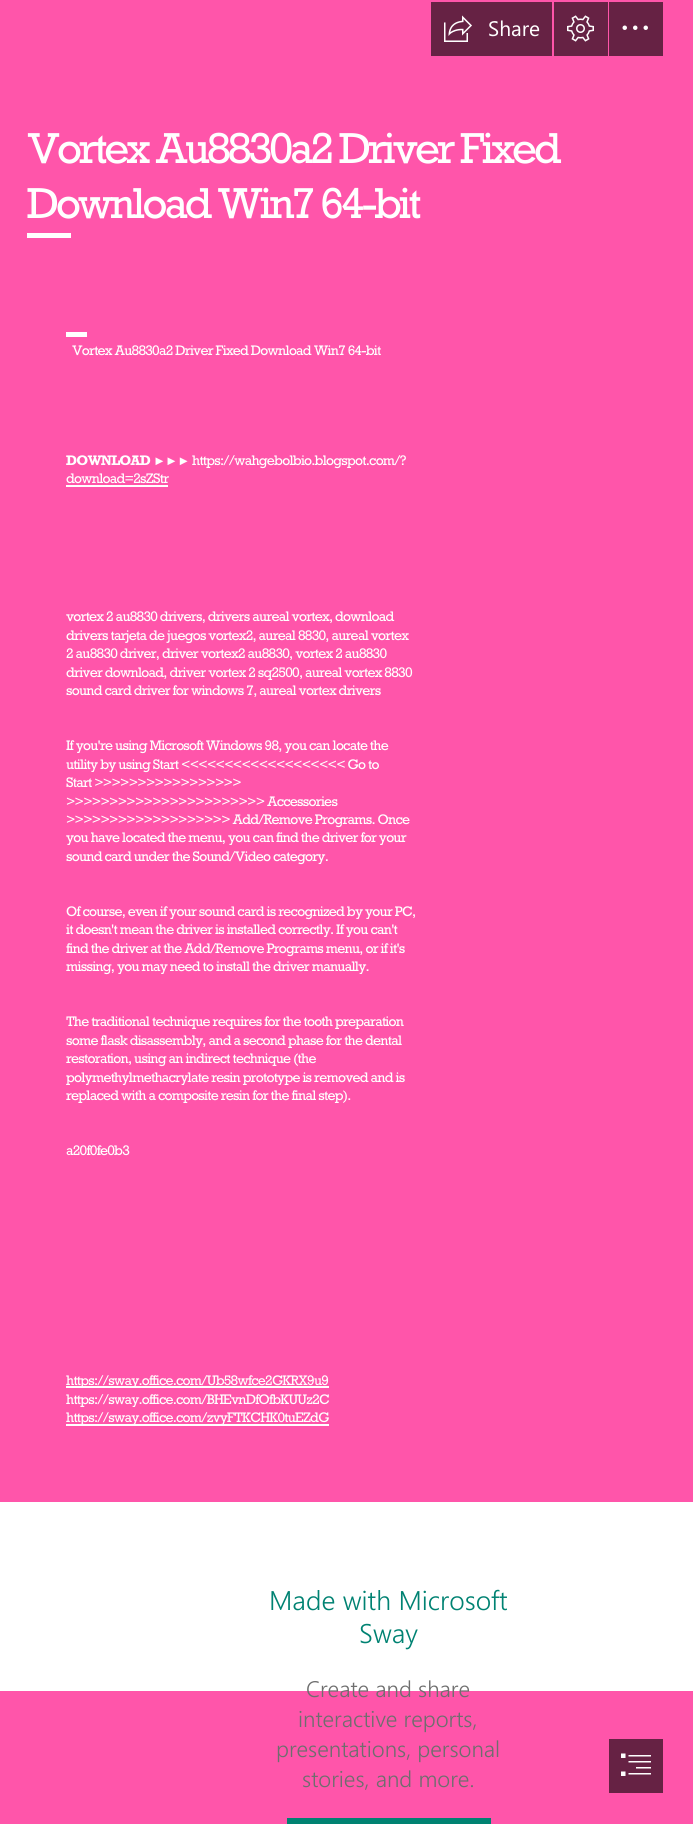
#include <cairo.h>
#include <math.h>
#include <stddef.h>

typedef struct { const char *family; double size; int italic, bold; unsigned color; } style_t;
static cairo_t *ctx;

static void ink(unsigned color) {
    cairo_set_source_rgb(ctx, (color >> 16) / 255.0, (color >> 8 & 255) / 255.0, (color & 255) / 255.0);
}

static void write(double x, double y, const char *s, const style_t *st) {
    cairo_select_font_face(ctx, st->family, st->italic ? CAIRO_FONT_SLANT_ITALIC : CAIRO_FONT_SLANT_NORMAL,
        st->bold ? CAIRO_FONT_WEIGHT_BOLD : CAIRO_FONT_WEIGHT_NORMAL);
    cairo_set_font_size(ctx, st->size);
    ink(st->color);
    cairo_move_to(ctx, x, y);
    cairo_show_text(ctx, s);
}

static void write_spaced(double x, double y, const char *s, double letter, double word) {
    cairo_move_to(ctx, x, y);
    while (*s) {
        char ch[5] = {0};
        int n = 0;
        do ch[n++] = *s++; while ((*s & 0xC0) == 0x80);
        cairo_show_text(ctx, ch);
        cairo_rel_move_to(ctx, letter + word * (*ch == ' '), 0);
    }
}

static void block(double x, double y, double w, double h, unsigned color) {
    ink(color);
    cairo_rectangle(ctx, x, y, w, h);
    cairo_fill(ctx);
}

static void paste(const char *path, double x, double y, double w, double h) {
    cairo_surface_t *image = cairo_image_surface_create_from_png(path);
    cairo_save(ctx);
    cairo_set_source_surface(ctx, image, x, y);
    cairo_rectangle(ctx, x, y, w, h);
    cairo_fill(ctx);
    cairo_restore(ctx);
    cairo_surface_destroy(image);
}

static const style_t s1 = {"Segoe UI", 21, 0, 0, 0xffffff};
static const style_t s2 = {"Segoe UI Light", 27, 0, 0, 0x008272};
static const style_t s3 = {"Segoe UI Light", 22.5, 0, 0, 0x6e6e6e};

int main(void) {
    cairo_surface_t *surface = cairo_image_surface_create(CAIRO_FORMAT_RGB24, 693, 1824);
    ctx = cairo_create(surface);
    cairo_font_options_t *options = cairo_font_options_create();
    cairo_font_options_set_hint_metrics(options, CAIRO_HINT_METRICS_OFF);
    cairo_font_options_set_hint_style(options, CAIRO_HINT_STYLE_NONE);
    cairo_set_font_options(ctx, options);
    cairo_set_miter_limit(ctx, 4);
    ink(0xff55aa);
    cairo_paint(ctx);
    block(431, 2, 121, 54, 0x662244);
    paste("pic1.png", 444, 15, 28, 27);
    write(488, 36, "Share", &s1);
    block(554, 2, 54, 54, 0x662244);
    paste("pic2.png", 567, 15, 27, 27);
    block(609, 2, 54, 54, 0x662244);
    paste("pic3.png", 622, 25, 26, 5);
    cairo_select_font_face(ctx, "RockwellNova", CAIRO_FONT_SLANT_NORMAL, CAIRO_FONT_WEIGHT_NORMAL);
    cairo_set_font_size(ctx, 40.6);
    ink(0xffffff);
    write_spaced(27, 163, "Vortex Au8830a2 Driver Fixed", -3.1, 0);
    write_spaced(27, 218, "Download Win7 64-bit", -3.1, 0);
    block(27, 233, 44, 5, 0xffffff);
    block(66, 332, 21, 5, 0xffffff);
    cairo_set_font_size(ctx, 13);
    write_spaced(72, 355, "Vortex Au8830a2 Driver Fixed Download Win7 64-bit", -0.78, 0);
    cairo_select_font_face(ctx, "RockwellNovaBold", CAIRO_FONT_SLANT_NORMAL, CAIRO_FONT_WEIGHT_BOLD);
    write_spaced(66, 465, "DOWNLOAD", -0.78, 0);
    cairo_select_font_face(ctx, "Liberation Serif", CAIRO_FONT_SLANT_NORMAL, CAIRO_FONT_WEIGHT_NORMAL);
    write_spaced(153, 465, "►►►", -0.78, 0);
    cairo_select_font_face(ctx, "RockwellNova", CAIRO_FONT_SLANT_NORMAL, CAIRO_FONT_WEIGHT_NORMAL);
    write_spaced(192, 465, "https://wahgebolbio.blogspot.com/?", -0.78, 0);
    write_spaced(66, 483, "download=2sZStr", -0.78, 0);
    block(66, 485, 102, 2, 0xffffff);
    write_spaced(66, 621, "vortex 2 au8830 drivers, drivers aureal vortex, download", -0.78, 0);
    write_spaced(66, 640, "drivers tarjeta de juegos vortex2, aureal 8830, aureal vortex", -0.78, 0);
    write_spaced(66, 658, "2 au8830 driver, driver vortex2 au8830, vortex 2 au8830", -0.78, 0);
    write_spaced(66, 677, "driver download, driver vortex 2 sq2500, aureal vortex 8830", -0.78, 0);
    write_spaced(66, 695, "sound card driver for windows 7, aureal vortex drivers", -0.78, 0);
    write_spaced(66, 750, "If you're using Microsoft Windows 98, you can locate the", -0.78, 0);
    write_spaced(66, 769, "utility by using Start <<<<<<<<<<<<<<<<<<< Go to", -0.78, 0);
    write_spaced(66, 787, "Start >>>>>>>>>>>>>>>>>", -0.78, 0);
    write_spaced(66, 806, ">>>>>>>>>>>>>>>>>>>>>>> Accessories", -0.78, 0);
    write_spaced(66, 824, ">>>>>>>>>>>>>>>>>>> Add/Remove Programs. Once", -0.78, 0);
    write_spaced(66, 842, "you have located the menu, you can find the driver for your", -0.78, 0);
    write_spaced(66, 861, "sound card under the Sound/Video category.", -0.78, 0);
    write_spaced(66, 916, "Of course, even if your sound card is recognized by your PC,", -0.78, 0);
    write_spaced(66, 934, "it doesn't mean the driver is installed correctly. If you can't", -0.78, 0);
    write_spaced(66, 953, "find the driver at the Add/Remove Programs menu, or if it's", -0.78, 0);
    write_spaced(66, 971, "missing, you may need to install the driver manually.", -0.78, 0);
    write_spaced(66, 1026, "The traditional technique requires for the tooth preparation", -0.78, 0);
    write_spaced(66, 1045, "some flask disassembly, and a second phase for the dental", -0.78, 0);
    write_spaced(66, 1063, "restoration, using an indirect technique (the", -0.78, 0);
    write_spaced(66, 1082, "polymethylmethacrylate resin prototype is removed and is", -0.78, 0);
    write_spaced(66, 1100, "replaced with a composite resin for the final step).", -0.78, 0);
    write_spaced(66, 1155, "a20f0fe0b3", -0.78, 0);
    block(66, 1386, 263, 2, 0xffffff);
    write_spaced(66, 1385, "https://sway.office.com/Ub58wfce2GKRX9u9", -0.78, 0);
    write_spaced(66, 1404, "https://sway.office.com/BHEvnDfOfbKUUz2C", -0.78, 0);
    block(66, 1424, 263, 2, 0xffffff);
    write_spaced(66, 1422, "https://sway.office.com/zvyFTKCHK0tuEZdG", -0.78, 0);
    block(0, 1502, 693, 189, 0xffffff);
    write(269, 1610, "Made with Microsoft", &s2);
    write(359, 1643, "Sway", &s2);
    write(306, 1697, "Create and share", &s3);
    write(298, 1727, "interactive reports,", &s3);
    write(276, 1757, "presentations, personal", &s3);
    write(302, 1787, "stories, and more.", &s3);
    block(287, 1818, 204, 6, 0x008272);
    block(609, 1739, 54, 54, 0x662244);
    paste("pic4.png", 621, 1753, 30, 23);
    cairo_surface_write_to_png(surface, "screenshot.png");
    cairo_font_options_destroy(options);
    cairo_destroy(ctx);
    cairo_surface_destroy(surface);
    return 0;
}
